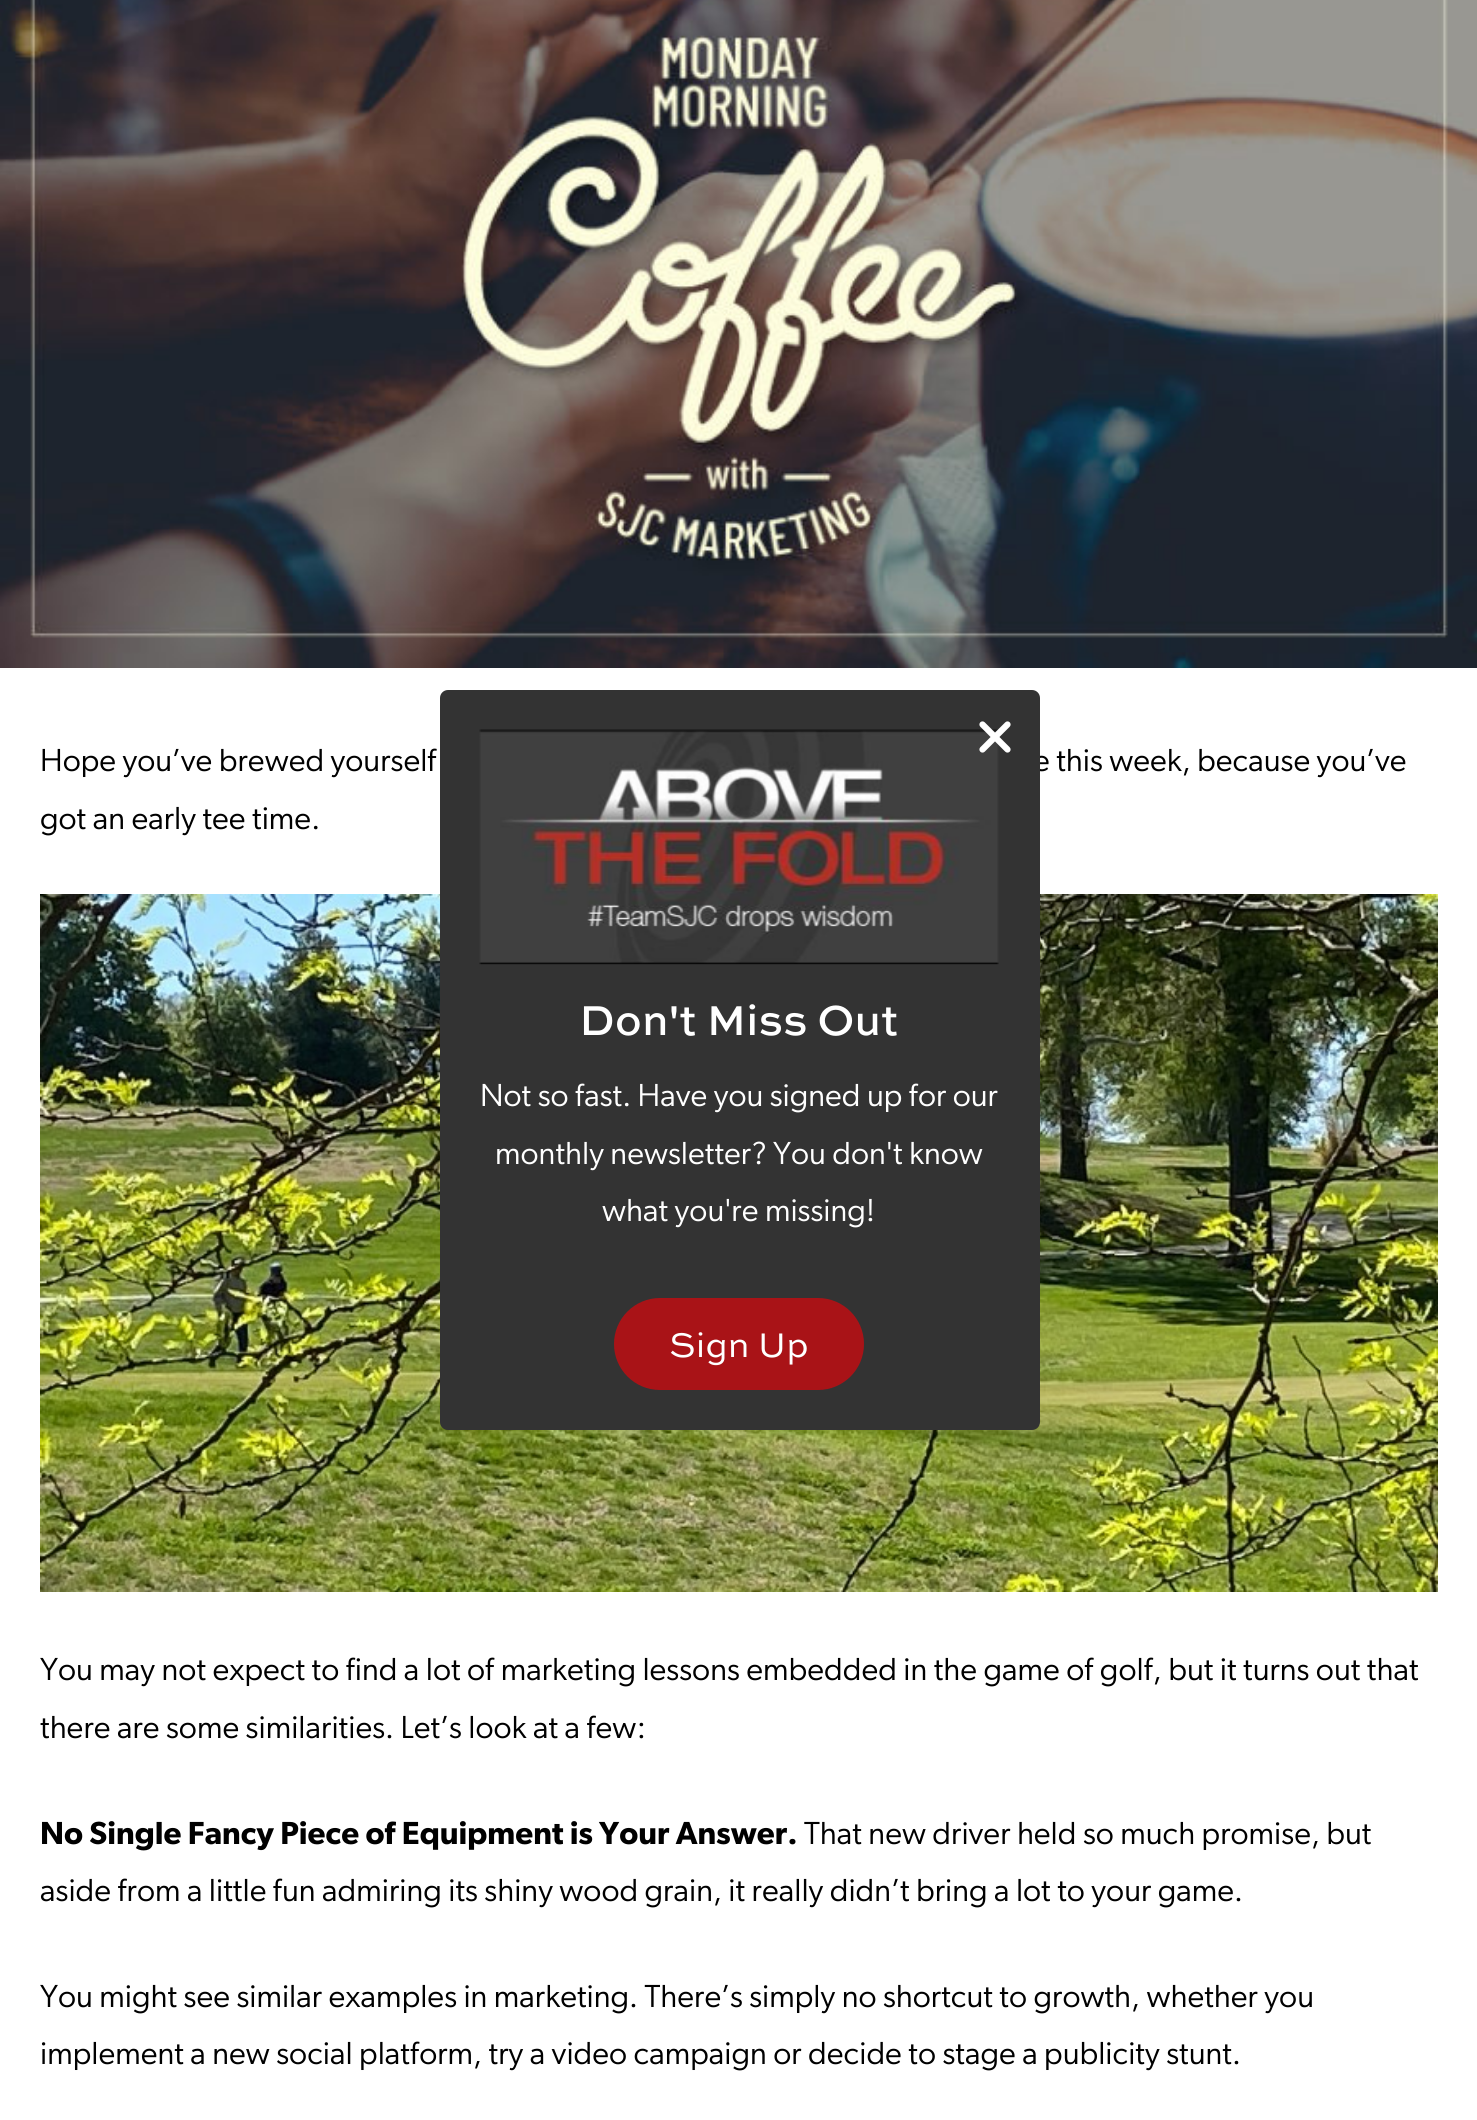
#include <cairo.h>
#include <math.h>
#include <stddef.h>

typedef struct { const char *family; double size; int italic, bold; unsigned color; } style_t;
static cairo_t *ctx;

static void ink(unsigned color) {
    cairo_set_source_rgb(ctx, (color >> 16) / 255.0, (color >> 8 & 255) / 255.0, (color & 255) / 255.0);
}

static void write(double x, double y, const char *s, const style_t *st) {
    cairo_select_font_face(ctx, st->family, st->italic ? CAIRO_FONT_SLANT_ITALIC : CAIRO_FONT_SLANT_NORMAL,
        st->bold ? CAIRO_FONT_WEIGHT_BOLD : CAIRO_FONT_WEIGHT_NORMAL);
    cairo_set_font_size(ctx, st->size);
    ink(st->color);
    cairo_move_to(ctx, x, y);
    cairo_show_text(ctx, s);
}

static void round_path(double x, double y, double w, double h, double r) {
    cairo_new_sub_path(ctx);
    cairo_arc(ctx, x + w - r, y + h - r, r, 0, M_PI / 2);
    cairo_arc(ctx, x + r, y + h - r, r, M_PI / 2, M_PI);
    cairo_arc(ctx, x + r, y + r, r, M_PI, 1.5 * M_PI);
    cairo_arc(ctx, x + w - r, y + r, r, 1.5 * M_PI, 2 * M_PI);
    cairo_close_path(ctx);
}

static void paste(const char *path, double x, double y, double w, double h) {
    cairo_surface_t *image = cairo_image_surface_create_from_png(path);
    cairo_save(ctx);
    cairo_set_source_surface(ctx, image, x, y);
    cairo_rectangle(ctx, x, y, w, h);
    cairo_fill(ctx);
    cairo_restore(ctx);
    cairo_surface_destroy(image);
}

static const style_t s1 = {"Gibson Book", 32, 0, 0, 0x000000};
static const style_t s2 = {"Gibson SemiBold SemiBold", 32, 0, 0, 0x000000};
static const style_t s3 = {"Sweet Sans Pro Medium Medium", 44, 0, 0, 0xffffff};
static const style_t s4 = {"Gibson Book", 32, 0, 0, 0xffffff};
static const style_t s5 = {"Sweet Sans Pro", 36, 0, 0, 0xffffff};

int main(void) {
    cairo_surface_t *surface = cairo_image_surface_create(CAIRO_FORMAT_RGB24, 1477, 2120);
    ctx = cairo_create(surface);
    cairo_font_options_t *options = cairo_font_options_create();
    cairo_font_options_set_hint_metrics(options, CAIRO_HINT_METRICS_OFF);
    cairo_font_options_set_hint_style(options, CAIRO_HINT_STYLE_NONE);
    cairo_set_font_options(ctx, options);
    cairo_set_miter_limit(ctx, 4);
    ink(0xffffff);
    cairo_paint(ctx);
    paste("pic1.png", 0, 0, 1477, 668);
    write(40, 771, "Hope you’ve brewed yourself", &s1);
    write(1033, 771, "e this week, because you’ve", &s1);
    write(40, 829, "got an early tee time.", &s1);
    paste("pic2.png", 40, 894, 1398, 698);
    write(40, 1680, "You may not expect to find a lot of marketing lessons embedded in the game of golf, but it turns out that", &s1);
    write(40, 1738, "there are some similarities. Let’s look at a few:", &s1);
    write(40, 1844, "No Single Fancy Piece of Equipment is Your Answer.", &s2);
    write(804, 1844, "That new driver held so much promise, but", &s1);
    write(40, 1901, "aside from a little fun admiring its shiny wood grain, it really didn’t bring a lot to your game.", &s1);
    write(40, 2007, "You might see similar examples in marketing. There’s simply no shortcut to growth, whether you", &s1);
    write(40, 2064, "implement a new social platform, try a video campaign or decide to stage a publicity stunt.", &s1);
    ink(0x333333);
    round_path(440, 690, 600, 740, 8);
    cairo_fill(ctx);
    paste("pic4.png", 479, 729, 520, 236);
    paste("pic3.png", 979, 721, 32, 32);
    write(579, 1035, "Don't Miss Out", &s3);
    write(480, 1106, "Not so fast. Have you signed up for our", &s4);
    write(495, 1164, "monthly newsletter? You don't know", &s4);
    write(602, 1221, "what you're missing!", &s4);
    ink(0xa91317);
    round_path(614, 1298, 250, 92, 46);
    cairo_fill(ctx);
    write(669, 1357, "Sign Up", &s5);
    cairo_surface_write_to_png(surface, "screenshot.png");
    cairo_font_options_destroy(options);
    cairo_destroy(ctx);
    cairo_surface_destroy(surface);
    return 0;
}
